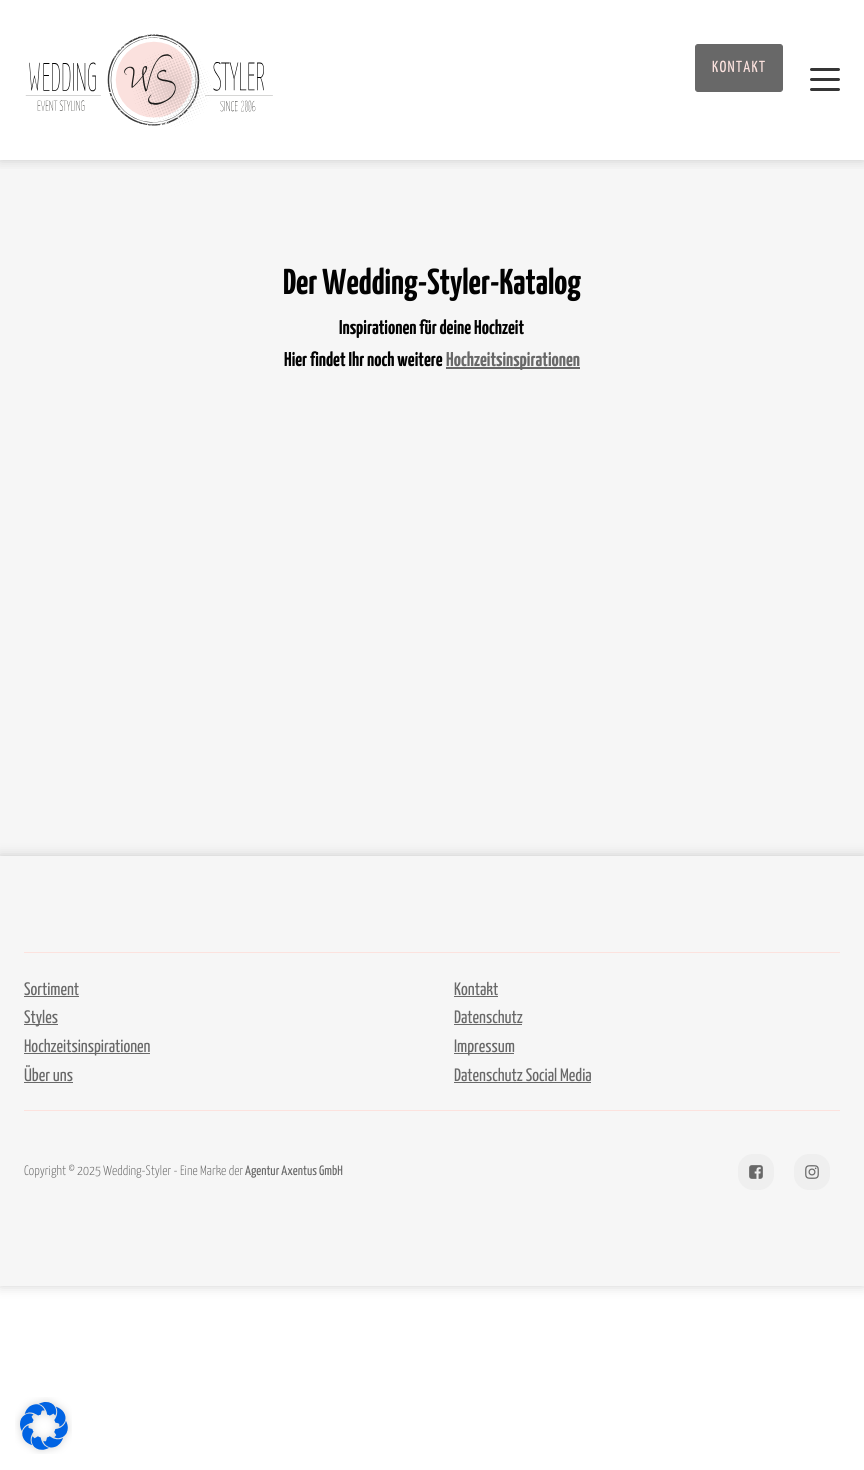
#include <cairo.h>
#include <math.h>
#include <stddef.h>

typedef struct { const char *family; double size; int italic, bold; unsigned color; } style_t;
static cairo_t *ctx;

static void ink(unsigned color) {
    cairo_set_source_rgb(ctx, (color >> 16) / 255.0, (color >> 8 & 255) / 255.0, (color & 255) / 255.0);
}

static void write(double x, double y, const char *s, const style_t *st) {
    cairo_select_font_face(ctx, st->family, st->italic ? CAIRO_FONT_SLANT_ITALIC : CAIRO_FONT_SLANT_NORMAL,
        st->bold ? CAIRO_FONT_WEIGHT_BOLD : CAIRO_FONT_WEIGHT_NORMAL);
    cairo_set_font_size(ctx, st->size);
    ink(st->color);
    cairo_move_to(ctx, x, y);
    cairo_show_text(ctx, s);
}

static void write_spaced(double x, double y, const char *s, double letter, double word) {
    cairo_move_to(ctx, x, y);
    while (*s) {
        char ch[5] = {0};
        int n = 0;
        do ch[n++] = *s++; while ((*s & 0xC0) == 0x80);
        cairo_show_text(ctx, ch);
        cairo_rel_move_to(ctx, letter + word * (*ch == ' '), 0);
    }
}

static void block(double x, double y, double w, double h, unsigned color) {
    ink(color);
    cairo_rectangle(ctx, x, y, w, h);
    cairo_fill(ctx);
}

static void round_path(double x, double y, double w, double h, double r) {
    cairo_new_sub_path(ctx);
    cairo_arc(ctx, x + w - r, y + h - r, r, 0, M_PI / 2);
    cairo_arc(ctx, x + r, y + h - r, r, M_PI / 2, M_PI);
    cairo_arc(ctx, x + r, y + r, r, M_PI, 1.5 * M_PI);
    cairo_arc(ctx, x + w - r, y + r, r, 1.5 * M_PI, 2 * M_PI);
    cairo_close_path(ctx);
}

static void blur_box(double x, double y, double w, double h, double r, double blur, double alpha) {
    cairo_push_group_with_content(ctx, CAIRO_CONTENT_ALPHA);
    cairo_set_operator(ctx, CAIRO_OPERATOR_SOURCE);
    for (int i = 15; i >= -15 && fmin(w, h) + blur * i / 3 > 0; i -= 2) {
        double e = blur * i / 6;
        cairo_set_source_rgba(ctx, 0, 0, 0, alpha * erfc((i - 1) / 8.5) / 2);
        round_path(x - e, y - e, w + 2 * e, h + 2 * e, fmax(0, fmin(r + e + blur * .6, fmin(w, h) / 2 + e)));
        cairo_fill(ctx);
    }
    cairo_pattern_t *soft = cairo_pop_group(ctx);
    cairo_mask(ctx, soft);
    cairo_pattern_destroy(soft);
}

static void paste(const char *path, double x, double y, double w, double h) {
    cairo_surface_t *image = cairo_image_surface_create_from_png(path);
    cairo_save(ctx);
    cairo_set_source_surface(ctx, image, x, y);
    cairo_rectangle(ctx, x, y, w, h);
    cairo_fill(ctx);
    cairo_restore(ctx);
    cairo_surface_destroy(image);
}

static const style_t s1 = {"Yanone Kaffeesatz", 36, 0, 1, 0x020202};
static const style_t s2 = {"Yanone Kaffeesatz", 20, 0, 1, 0x020202};
static const style_t s3 = {"Yanone Kaffeesatz", 20, 0, 1, 0x686868};
static const style_t s4 = {"Yanone Kaffeesatz", 18, 0, 0, 0x686868};
static const style_t s5 = {"Yanone Kaffeesatz Light", 13.6, 0, 0, 0x686868};
static const style_t s6 = {"Yanone Kaffeesatz", 13.6, 0, 0, 0x686868};

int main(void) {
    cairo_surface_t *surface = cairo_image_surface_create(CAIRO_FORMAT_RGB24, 864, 1470);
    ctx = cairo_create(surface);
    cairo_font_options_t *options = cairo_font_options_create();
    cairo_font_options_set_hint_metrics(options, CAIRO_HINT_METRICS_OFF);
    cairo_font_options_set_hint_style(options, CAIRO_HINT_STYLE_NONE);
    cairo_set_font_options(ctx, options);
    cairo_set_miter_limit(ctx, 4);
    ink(0xffffff);
    cairo_paint(ctx);
    block(0, 160, 864, 696, 0xf6f6f6);
    cairo_save(ctx);
    cairo_rectangle(ctx, 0, 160, 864, 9);
    cairo_clip(ctx);
    ink(0x686868);
    blur_box(0, 0, 864, 160, 0, 6, 0.3);
    cairo_restore(ctx);
    paste("pic1.png", 25, 34, 248, 93);
    ink(0x686868);
    round_path(695.5, 44.5, 87, 47, 2.5);
    cairo_fill_preserve(ctx);
    cairo_set_line_width(ctx, 1);
    cairo_stroke(ctx);
    cairo_select_font_face(ctx, "Yanone Kaffeesatz", CAIRO_FONT_SLANT_NORMAL, CAIRO_FONT_WEIGHT_NORMAL);
    cairo_set_font_size(ctx, 16);
    ink(0xfce2de);
    write_spaced(712, 72, "KONTAKT", 1.25, 0);
    ink(0x353535);
    round_path(810, 68, 30, 3, 1.5);
    cairo_fill(ctx);
    round_path(810, 78, 30, 3, 1.5);
    cairo_fill(ctx);
    round_path(810, 88, 30, 3, 1.5);
    cairo_fill(ctx);
    write(283, 294, "Der Wedding-Styler-Katalog", &s1);
    write(339, 334, "Inspirationen für deine Hochzeit", &s2);
    write(284, 366, "Hier findet Ihr noch weitere", &s2);
    block(446, 367, 134, 2, 0x686868);
    write(446, 366, "Hochzeitsinspirationen", &s3);
    ink(0x686868);
    blur_box(0, 856, 864, 430, 0, 6, 0.3);
    block(0, 856, 864, 430, 0xf6f6f6);
    block(24, 952, 816, 1, 0xfce2de);
    block(24, 1110, 816, 1, 0xfce2de);
    write(24, 995, "Sortiment", &s4);
    block(24, 996, 55, 1, 0x686868);
    block(24, 1024, 34, 1, 0x686868);
    write(24, 1023, "Styles", &s4);
    block(24, 1053, 126, 1, 0x686868);
    write(24, 1052, "Hochzeitsinspirationen", &s4);
    write(24, 1081, "Über uns", &s4);
    block(24, 1082, 49, 1, 0x686868);
    write(454, 995, "Kontakt", &s4);
    block(454, 996, 44, 1, 0x686868);
    write(454, 1023, "Datenschutz", &s4);
    block(454, 1024, 68, 1, 0x686868);
    block(454, 1053, 60, 1, 0x686868);
    write(454, 1052, "Impressum", &s4);
    write(454, 1081, "Datenschutz Social Media", &s4);
    block(454, 1082, 137, 1, 0x686868);
    write(24, 1175, "Copyright © 2025 Wedding-Styler - Eine Marke der", &s5);
    write(245, 1175, "Agentur Axentus GmbH", &s6);
    ink(0xefefef);
    round_path(738, 1154, 36, 36, 15);
    cairo_fill(ctx);
    paste("pic2.png", 749, 1165, 14, 14);
    round_path(794, 1154, 36, 36, 15);
    cairo_fill(ctx);
    paste("pic3.png", 805, 1165, 14, 14);
    paste("pic4.png", 15, 1397, 57, 57);
    cairo_surface_write_to_png(surface, "screenshot.png");
    cairo_font_options_destroy(options);
    cairo_destroy(ctx);
    cairo_surface_destroy(surface);
    return 0;
}
